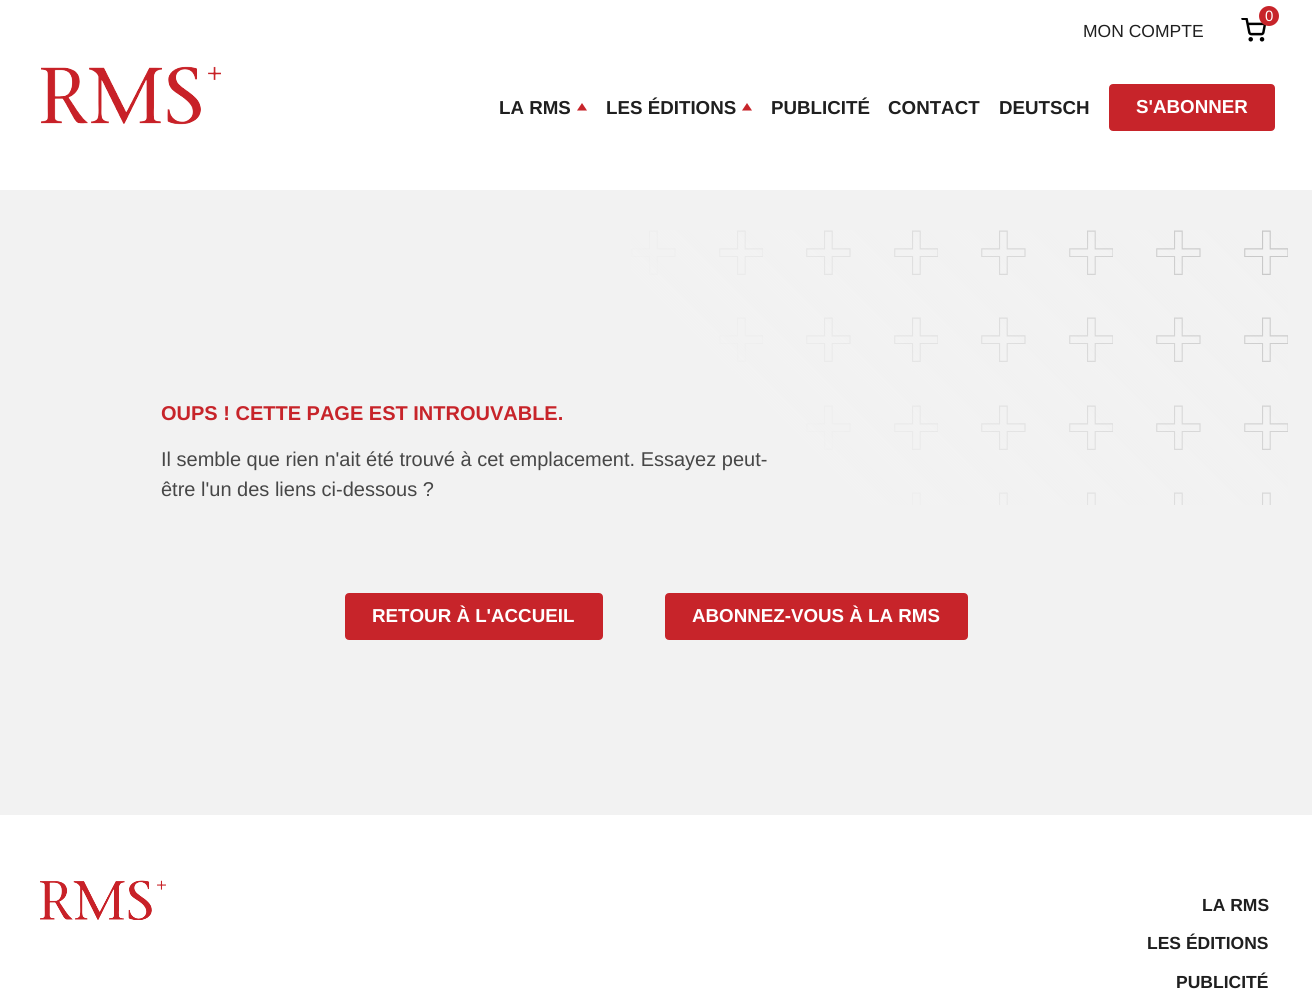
#include <cairo.h>
#include <math.h>
#include <stddef.h>

typedef struct { const char *family; double size; int italic, bold; unsigned color; } style_t;
static cairo_t *ctx;

static void ink(unsigned color) {
    cairo_set_source_rgb(ctx, (color >> 16) / 255.0, (color >> 8 & 255) / 255.0, (color & 255) / 255.0);
}

static void write(double x, double y, const char *s, const style_t *st) {
    cairo_select_font_face(ctx, st->family, st->italic ? CAIRO_FONT_SLANT_ITALIC : CAIRO_FONT_SLANT_NORMAL,
        st->bold ? CAIRO_FONT_WEIGHT_BOLD : CAIRO_FONT_WEIGHT_NORMAL);
    cairo_set_font_size(ctx, st->size);
    ink(st->color);
    cairo_move_to(ctx, x, y);
    cairo_show_text(ctx, s);
}

static void block(double x, double y, double w, double h, unsigned color) {
    ink(color);
    cairo_rectangle(ctx, x, y, w, h);
    cairo_fill(ctx);
}

static void round_path(double x, double y, double w, double h, double r) {
    cairo_new_sub_path(ctx);
    cairo_arc(ctx, x + w - r, y + h - r, r, 0, M_PI / 2);
    cairo_arc(ctx, x + r, y + h - r, r, M_PI / 2, M_PI);
    cairo_arc(ctx, x + r, y + r, r, M_PI, 1.5 * M_PI);
    cairo_arc(ctx, x + w - r, y + r, r, 1.5 * M_PI, 2 * M_PI);
    cairo_close_path(ctx);
}

static void paste(const char *path, double x, double y, double w, double h) {
    cairo_surface_t *image = cairo_image_surface_create_from_png(path);
    cairo_save(ctx);
    cairo_set_source_surface(ctx, image, x, y);
    cairo_rectangle(ctx, x, y, w, h);
    cairo_fill(ctx);
    cairo_restore(ctx);
    cairo_surface_destroy(image);
}

static const style_t s1 = {"Liberation Sans", 15, 0, 0, 0xffffff};
static const style_t s2 = {"Liberation Sans", 17.5, 0, 0, 0x1f1f1f};
static const style_t s3 = {"Liberation Sans", 18.75, 0, 1, 0x1f1f1f};
static const style_t s4 = {"Liberation Sans", 18.75, 0, 1, 0xffffff};
static const style_t s5 = {"Liberation Sans", 20, 0, 1, 0xc7242a};
static const style_t s6 = {"Liberation Sans", 20, 0, 0, 0x474747};
static const style_t s7 = {"Liberation Sans", 17.5, 0, 1, 0x1f1f1f};

int main(void) {
    cairo_surface_t *surface = cairo_image_surface_create(CAIRO_FORMAT_RGB24, 1312, 993);
    ctx = cairo_create(surface);
    cairo_font_options_t *options = cairo_font_options_create();
    cairo_font_options_set_hint_metrics(options, CAIRO_HINT_METRICS_OFF);
    cairo_font_options_set_hint_style(options, CAIRO_HINT_STYLE_NONE);
    cairo_set_font_options(ctx, options);
    cairo_set_miter_limit(ctx, 4);
    cairo_pattern_t *gradient;
    ink(0xf2f2f2);
    cairo_paint(ctx);
    block(0, 0, 1312, 190, 0xffffff);
    paste("pic1.png", 1241, 18, 25, 24);
    ink(0xc7242a);
    cairo_arc(ctx, 1269, 16, 10, 0, 2 * M_PI);
    cairo_fill(ctx);
    write(1265, 21, "0", &s1);
    write(1083, 37, "MON COMPTE", &s2);
    paste("pic2.png", 41, 66, 180, 59);
    write(499, 114, "LA RMS", &s3);
    ink(0xc7242a);
    cairo_new_path(ctx);
    cairo_move_to(ctx, 587, 110.5);
    cairo_line_to(ctx, 577, 110.5);
    cairo_line_to(ctx, 582, 103);
    cairo_close_path(ctx);
    cairo_fill(ctx);
    write(606, 114, "LES ÉDITIONS", &s3);
    ink(0xc7242a);
    cairo_new_path(ctx);
    cairo_move_to(ctx, 752, 110.5);
    cairo_line_to(ctx, 742, 110.5);
    cairo_line_to(ctx, 747, 103);
    cairo_close_path(ctx);
    cairo_fill(ctx);
    write(771, 114, "PUBLICITÉ", &s3);
    write(888, 114, "CONTACT", &s3);
    write(999, 114, "DEUTSCH", &s3);
    ink(0xc7242a);
    round_path(1110.5, 85.5, 163, 44, 2.5);
    cairo_fill_preserve(ctx);
    cairo_set_line_width(ctx, 3);
    cairo_stroke(ctx);
    write(1136, 113, "S'ABONNER", &s4);
    paste("pic3.png", 631, 230, 657, 275);
    write(161, 420, "OUPS ! CETTE PAGE EST INTROUVABLE.", &s5);
    gradient = cairo_pattern_create_linear(249, 754, 1063, -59);
    cairo_pattern_add_color_stop_rgba(gradient, 0.53, 0.949, 0.949, 0.949, 1);
    cairo_pattern_add_color_stop_rgba(gradient, 1, 0.949, 0.949, 0.949, 0);
    cairo_set_source(ctx, gradient);
    cairo_pattern_destroy(gradient);
    cairo_rectangle(ctx, 631, 230, 657, 275);
    cairo_fill(ctx);
    write(161, 466, "Il semble que rien n'ait été trouvé à cet emplacement. Essayez peut-", &s6);
    write(161, 496, "être l'un des liens ci-dessous ?", &s6);
    ink(0xc7242a);
    round_path(346.5, 594.5, 255, 44, 2.5);
    cairo_fill_preserve(ctx);
    cairo_stroke(ctx);
    write(372, 622, "RETOUR À L'ACCUEIL", &s4);
    ink(0xc7242a);
    round_path(666.5, 594.5, 300, 44, 2.5);
    cairo_fill_preserve(ctx);
    cairo_stroke(ctx);
    write(692, 622, "ABONNEZ-VOUS À LA RMS", &s4);
    block(0, 815, 1312, 178, 0xffffff);
    paste("pic4.png", 40, 880, 126, 40);
    write(1202, 911, "LA RMS", &s7);
    write(1147, 949, "LES ÉDITIONS", &s7);
    write(1176, 988, "PUBLICITÉ", &s7);
    cairo_surface_write_to_png(surface, "screenshot.png");
    cairo_font_options_destroy(options);
    cairo_destroy(ctx);
    cairo_surface_destroy(surface);
    return 0;
}
